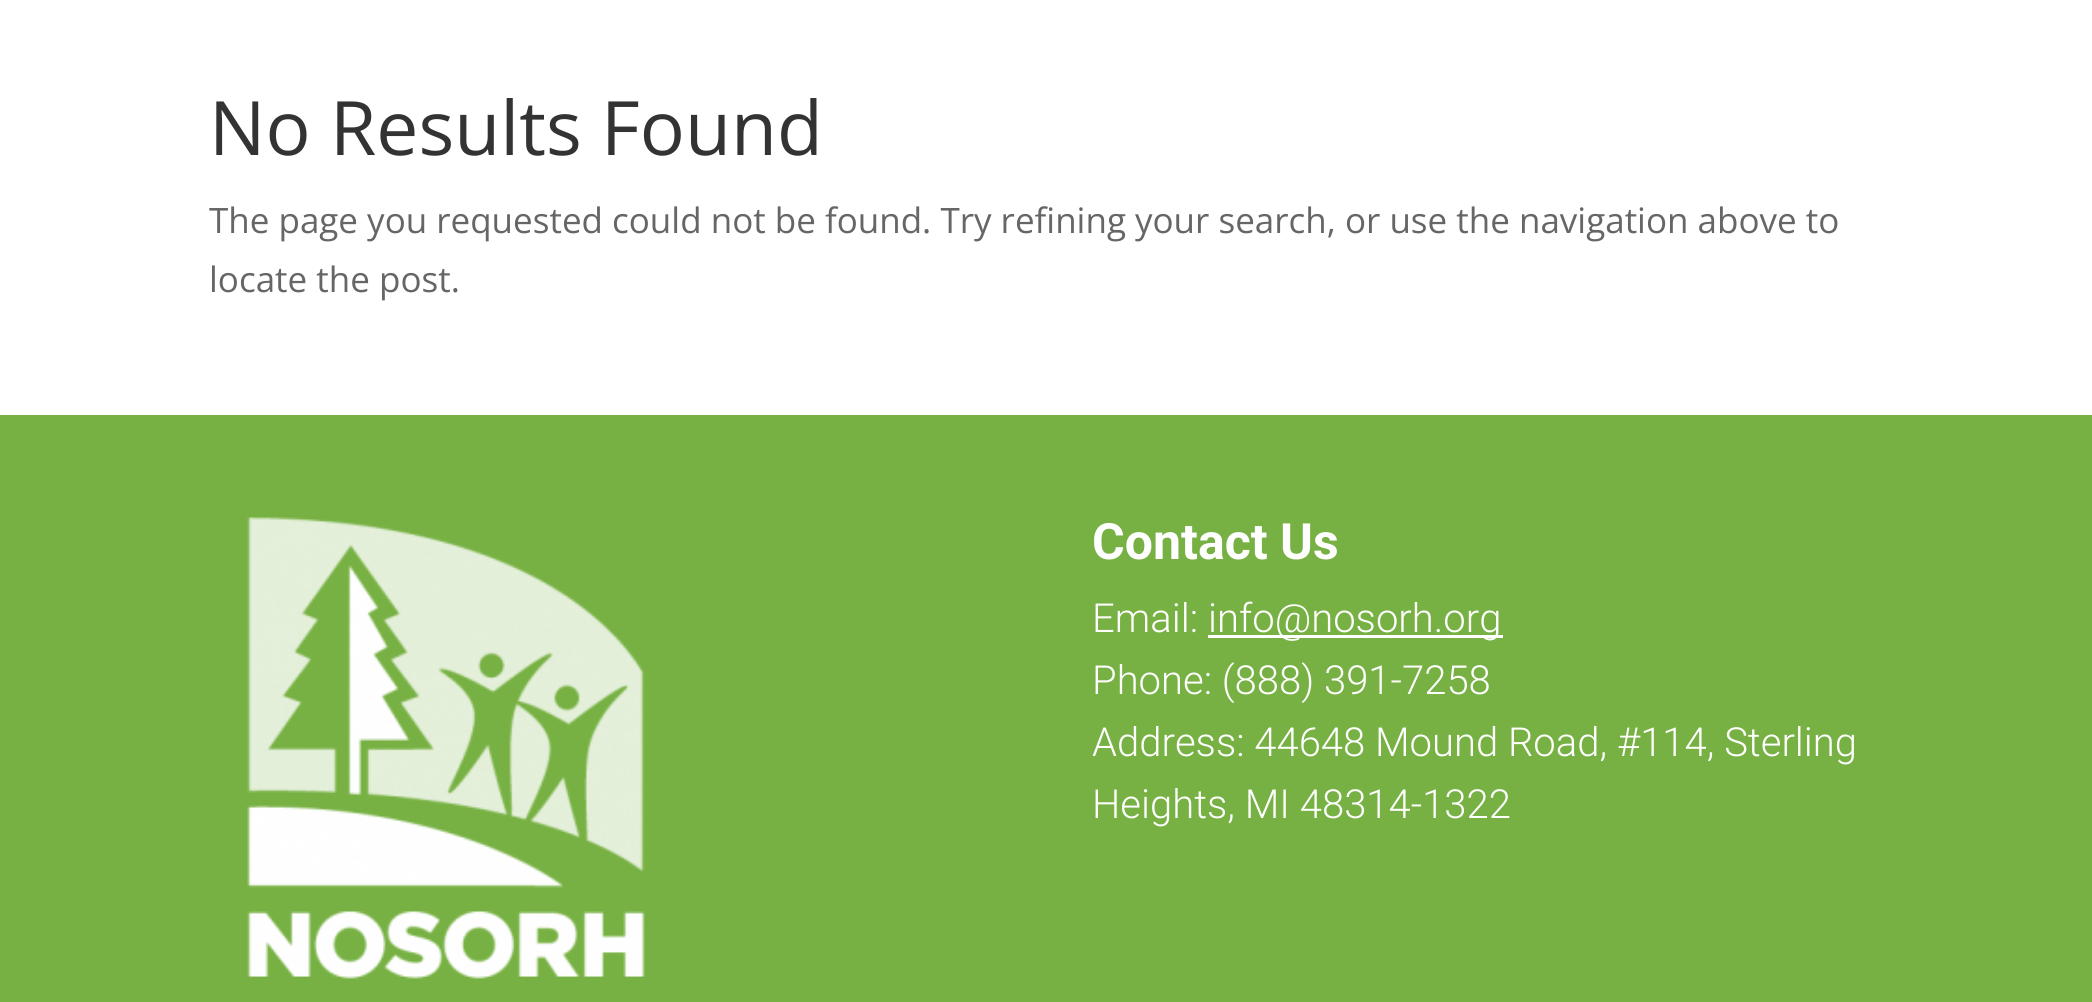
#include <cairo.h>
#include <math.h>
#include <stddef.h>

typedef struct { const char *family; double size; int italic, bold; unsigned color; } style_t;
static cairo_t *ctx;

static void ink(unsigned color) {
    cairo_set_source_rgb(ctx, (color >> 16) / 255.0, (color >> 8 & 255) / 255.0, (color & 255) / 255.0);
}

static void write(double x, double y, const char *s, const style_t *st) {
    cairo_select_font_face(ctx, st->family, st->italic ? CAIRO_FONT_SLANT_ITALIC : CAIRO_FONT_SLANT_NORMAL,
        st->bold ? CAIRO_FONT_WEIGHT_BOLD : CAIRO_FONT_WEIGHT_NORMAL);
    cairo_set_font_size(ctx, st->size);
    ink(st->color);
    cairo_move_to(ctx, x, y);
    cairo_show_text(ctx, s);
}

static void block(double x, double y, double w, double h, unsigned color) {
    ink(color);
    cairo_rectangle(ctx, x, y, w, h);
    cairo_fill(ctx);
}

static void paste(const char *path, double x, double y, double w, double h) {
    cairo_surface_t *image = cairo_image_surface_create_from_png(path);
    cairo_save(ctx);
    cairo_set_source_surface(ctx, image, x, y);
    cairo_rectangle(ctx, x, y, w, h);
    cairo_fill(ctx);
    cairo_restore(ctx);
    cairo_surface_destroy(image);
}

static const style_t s1 = {"Open Sans", 75, 0, 0, 0x333333};
static const style_t s2 = {"Open Sans", 35, 0, 0, 0x666666};
static const style_t s3 = {"Roboto", 50, 0, 1, 0xffffff};
static const style_t s4 = {"Roboto Light", 40, 0, 0, 0xffffff};

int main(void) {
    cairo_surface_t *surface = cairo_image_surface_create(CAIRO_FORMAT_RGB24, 2092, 1002);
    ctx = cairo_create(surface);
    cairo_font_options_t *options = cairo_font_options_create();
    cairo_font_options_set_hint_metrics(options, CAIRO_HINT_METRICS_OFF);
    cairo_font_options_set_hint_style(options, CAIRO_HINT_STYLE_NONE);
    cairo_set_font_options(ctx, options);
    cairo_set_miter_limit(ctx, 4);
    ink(0xffffff);
    cairo_paint(ctx);
    write(209, 155, "No Results Found", &s1);
    write(209, 233, "The page you requested could not be found. Try refining your search, or use the navigation above to", &s2);
    write(209, 292, "locate the post.", &s2);
    block(0, 415, 2092, 587, 0x77b143);
    paste("pic1.png", 247, 517, 398, 462);
    write(1092, 559, "Contact Us", &s3);
    write(1092, 632, "Email:", &s4);
    block(1208, 635, 295, 3, 0xffffff);
    write(1208, 632, "info@nosorh.org", &s4);
    write(1092, 694, "Phone: (888) 391-7258", &s4);
    write(1092, 756, "Address: 44648 Mound Road, #114, Sterling", &s4);
    write(1092, 818, "Heights, MI 48314-1322", &s4);
    cairo_surface_write_to_png(surface, "screenshot.png");
    cairo_font_options_destroy(options);
    cairo_destroy(ctx);
    cairo_surface_destroy(surface);
    return 0;
}
